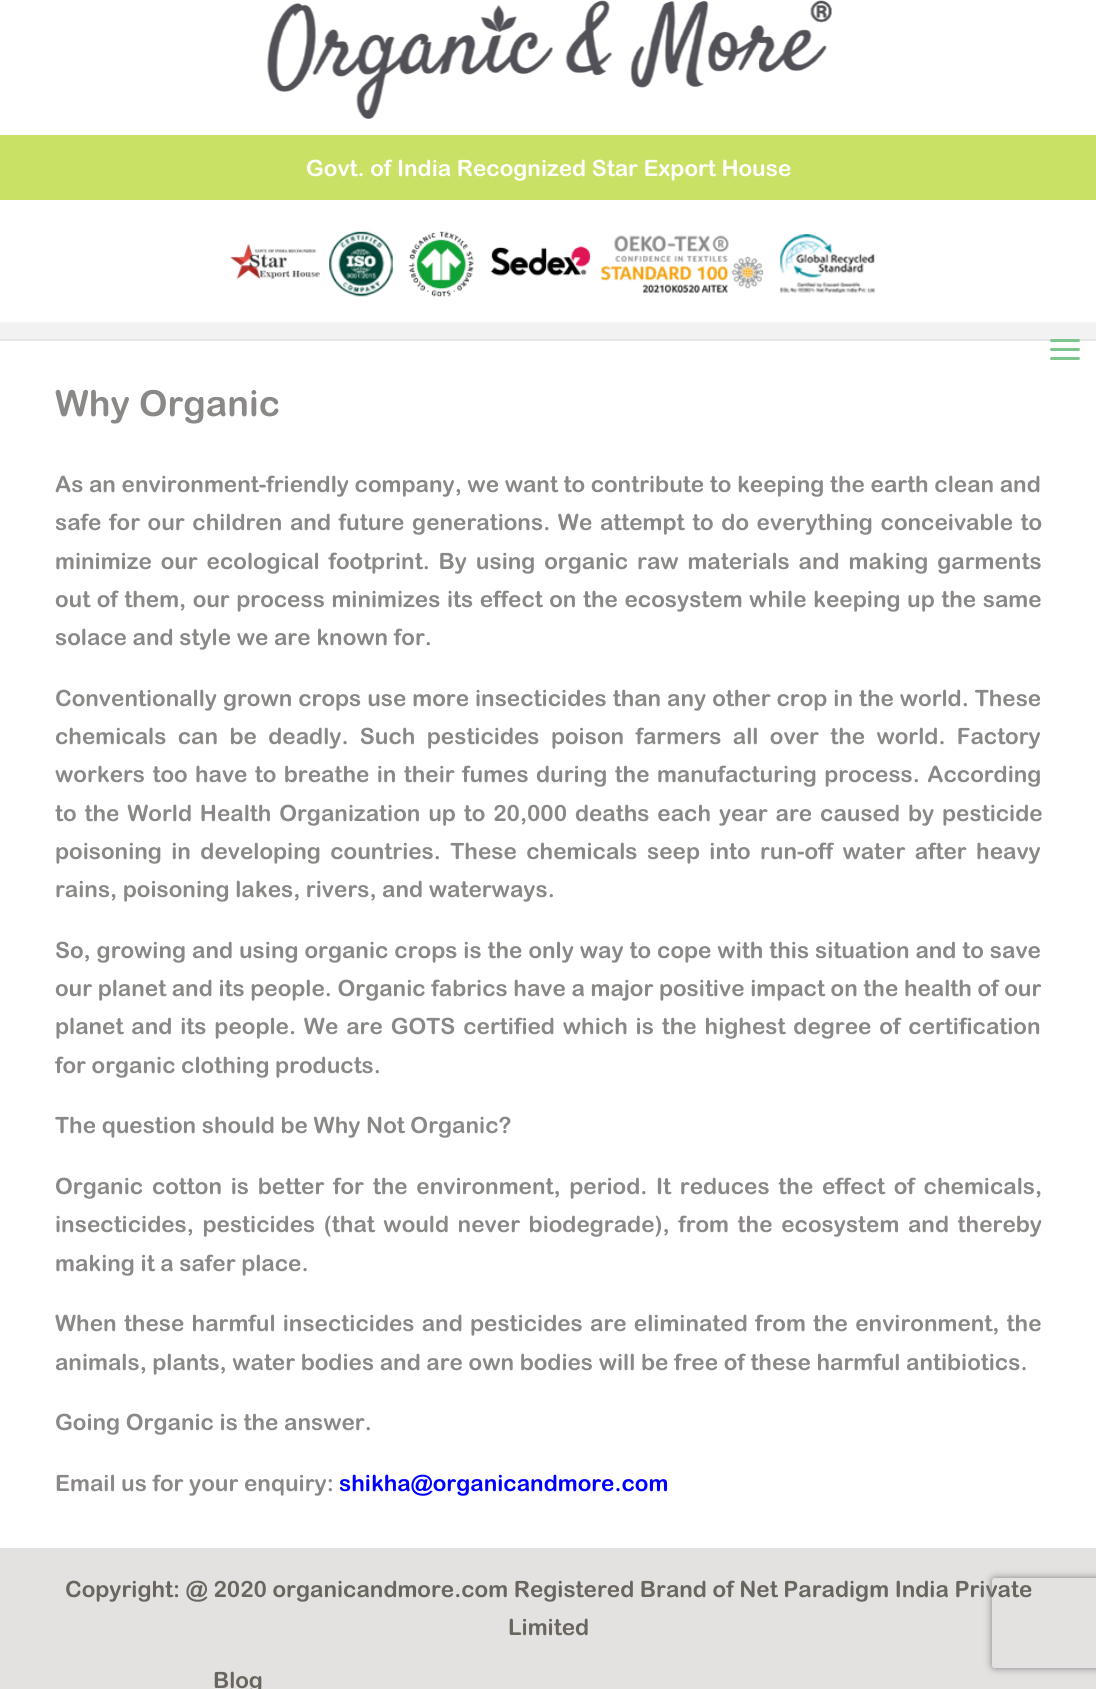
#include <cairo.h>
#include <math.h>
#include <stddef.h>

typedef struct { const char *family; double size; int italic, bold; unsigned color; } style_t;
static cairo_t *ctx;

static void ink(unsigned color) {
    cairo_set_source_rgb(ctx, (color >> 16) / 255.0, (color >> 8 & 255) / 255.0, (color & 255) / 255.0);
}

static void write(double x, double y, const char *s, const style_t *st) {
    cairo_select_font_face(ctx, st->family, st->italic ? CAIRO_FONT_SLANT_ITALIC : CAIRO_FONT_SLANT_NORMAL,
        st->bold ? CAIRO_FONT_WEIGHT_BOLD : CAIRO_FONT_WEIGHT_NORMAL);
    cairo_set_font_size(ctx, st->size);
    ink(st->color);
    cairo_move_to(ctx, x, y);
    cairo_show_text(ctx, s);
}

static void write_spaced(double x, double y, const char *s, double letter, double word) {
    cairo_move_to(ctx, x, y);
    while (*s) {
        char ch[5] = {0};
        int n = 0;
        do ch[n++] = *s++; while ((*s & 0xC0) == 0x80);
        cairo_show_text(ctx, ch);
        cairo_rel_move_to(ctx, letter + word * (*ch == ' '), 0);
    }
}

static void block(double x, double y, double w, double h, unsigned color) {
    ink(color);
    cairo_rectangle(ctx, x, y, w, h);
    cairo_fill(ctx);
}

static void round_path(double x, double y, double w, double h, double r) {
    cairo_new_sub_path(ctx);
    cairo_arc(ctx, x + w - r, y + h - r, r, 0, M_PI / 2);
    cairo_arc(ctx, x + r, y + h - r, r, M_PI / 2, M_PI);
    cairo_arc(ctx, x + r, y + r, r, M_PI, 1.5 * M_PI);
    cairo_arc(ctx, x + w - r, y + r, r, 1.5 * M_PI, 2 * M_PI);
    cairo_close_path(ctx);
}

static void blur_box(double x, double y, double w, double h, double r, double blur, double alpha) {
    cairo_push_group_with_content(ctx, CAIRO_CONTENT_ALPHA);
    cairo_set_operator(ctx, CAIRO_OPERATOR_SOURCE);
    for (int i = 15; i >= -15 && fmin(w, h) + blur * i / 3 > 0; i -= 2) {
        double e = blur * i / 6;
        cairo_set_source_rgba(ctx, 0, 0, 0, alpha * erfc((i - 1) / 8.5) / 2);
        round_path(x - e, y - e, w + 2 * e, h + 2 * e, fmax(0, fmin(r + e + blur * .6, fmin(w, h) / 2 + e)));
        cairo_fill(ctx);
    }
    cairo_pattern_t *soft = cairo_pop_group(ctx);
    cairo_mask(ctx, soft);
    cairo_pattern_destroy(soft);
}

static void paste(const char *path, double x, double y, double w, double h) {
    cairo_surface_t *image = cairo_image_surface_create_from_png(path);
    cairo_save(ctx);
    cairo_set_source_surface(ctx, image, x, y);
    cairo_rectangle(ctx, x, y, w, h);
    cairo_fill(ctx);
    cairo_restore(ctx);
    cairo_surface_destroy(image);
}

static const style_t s1 = {"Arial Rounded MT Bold", 22.5, 0, 1, 0xffffff};
static const style_t s2 = {"Arial Rounded MT Bold", 36, 0, 1, 0x8a8987};
static const style_t s3 = {"Arial Rounded MT Bold", 22.5, 0, 1, 0x8a8987};
static const style_t s4 = {"Arial Rounded MT Bold", 22.5, 0, 1, 0x0000ff};
static const style_t s5 = {"Arial Rounded MT Bold", 22.5, 0, 1, 0x69655f};

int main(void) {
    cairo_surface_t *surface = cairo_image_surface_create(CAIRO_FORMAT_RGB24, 1096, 1689);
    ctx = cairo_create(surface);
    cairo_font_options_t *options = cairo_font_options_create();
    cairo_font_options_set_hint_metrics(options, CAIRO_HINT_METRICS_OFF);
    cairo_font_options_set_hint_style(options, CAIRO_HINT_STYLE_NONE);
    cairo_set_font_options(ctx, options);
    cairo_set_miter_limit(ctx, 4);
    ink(0xffffff);
    cairo_paint(ctx);
    ink(0xe6e6e6);
    cairo_new_path(ctx);
    cairo_move_to(ctx, 0, 322);
    cairo_line_to(ctx, 0, 324);
    cairo_line_to(ctx, 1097, 324);
    cairo_line_to(ctx, 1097, 2);
    cairo_line_to(ctx, 1096, 2);
    cairo_line_to(ctx, 1096, 322);
    cairo_close_path(ctx);
    cairo_fill(ctx);
    cairo_set_source_rgba(ctx, 1, 1, 1, 0.59);
    cairo_rectangle(ctx, 0, 322, 1096, 1);
    cairo_fill(ctx);
    paste("pic1.png", 267, 0, 565, 119);
    block(0, 135, 1096, 65, 0xc9e165);
    write(306, 176, "Govt. of India Recognized Star Export House", &s1);
    paste("pic2.png", 230, 231, 645, 66);
    ink(0xe6e6e6);
    cairo_new_path(ctx);
    cairo_move_to(ctx, 0, 339);
    cairo_line_to(ctx, 0, 341);
    cairo_line_to(ctx, 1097, 341);
    cairo_line_to(ctx, 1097, 324);
    cairo_line_to(ctx, 1096, 324);
    cairo_line_to(ctx, 1096, 339);
    cairo_close_path(ctx);
    cairo_fill(ctx);
    cairo_set_source_rgba(ctx, 1, 1, 1, 0.59);
    cairo_rectangle(ctx, 0, 323, 1096, 1);
    cairo_fill(ctx);
    block(0, 324, 1096, 15, 0xf2f2f2);
    paste("pic3.png", 1050, 339, 30, 21);
    write(55, 416, "Why Organic", &s2);
    write(55, 492, "As an environment-friendly company, we want to contribute to keeping the earth clean and", &s3);
    write_spaced(55, 530, "safe for our children and future generations. We attempt to do everything conceivable to", 0, 2);
    write_spaced(55, 569, "minimize our ecological footprint. By using organic raw materials and making garments", 0, 3.25);
    write_spaced(55, 607, "out of them, our process minimizes its effect on the ecosystem while keeping up the same", 0, 0.9);
    write(55, 645, "solace and style we are known for.", &s3);
    write_spaced(55, 706, "Conventionally grown crops use more insecticides than any other crop in the world. These", 0, 0.3);
    write_spaced(55, 744, "chemicals can be deadly. Such pesticides poison farmers all over the world. Factory", 0, 5.75);
    write_spaced(55, 782, "workers too have to breathe in their fumes during the manufacturing process. According", 0, 1.75);
    write_spaced(55, 821, "to the World Health Organization up to 20,000 deaths each year are caused by pesticide", 0, 2.25);
    write_spaced(55, 859, "poisoning in developing countries. These chemicals seep into run-off water after heavy", 0, 3.75);
    write(55, 897, "rains, poisoning lakes, rivers, and waterways.", &s3);
    write_spaced(55, 958, "So, growing and using organic crops is the only way to cope with this situation and to save", 0, 0.3);
    write(55, 996, "our planet and its people. Organic fabrics have a major positive impact on the health of our", &s3);
    write_spaced(55, 1034, "planet and its people. We are GOTS certified which is the highest degree of certification", 0, 2.25);
    write(55, 1073, "for organic clothing products.", &s3);
    write(55, 1133, "The question should be Why Not Organic?", &s3);
    write_spaced(55, 1194, "Organic cotton is better for the environment, period. It reduces the effect of chemicals,", 0, 3.1);
    write_spaced(55, 1232, "insecticides, pesticides (that would never biodegrade), from the ecosystem and thereby", 0, 3);
    write(55, 1271, "making it a safer place.", &s3);
    write_spaced(55, 1331, "When these harmful insecticides and pesticides are eliminated from the environment, the", 0, 1.6);
    write(55, 1370, "animals, plants, water bodies and are own bodies will be free of these harmful antibiotics.", &s3);
    write(55, 1430, "Going Organic is the answer.", &s3);
    write(55, 1491, "Email us for your enquiry:", &s3);
    write(339, 1491, "shikha@organicandmore.com", &s4);
    block(0, 1548, 1096, 141, 0xe4e1e1);
    write(65, 1597, "Copyright: @ 2020 organicandmore.com Registered Brand of Net Paradigm India Private", &s5);
    write(508, 1635, "Limited", &s5);
    write(213, 1688, "Blog", &s5);
    cairo_save(ctx);
    cairo_set_fill_rule(ctx, CAIRO_FILL_RULE_EVEN_ODD);
    cairo_new_path(ctx);
    cairo_move_to(ctx, 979, 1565);
    cairo_line_to(ctx, 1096, 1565);
    cairo_line_to(ctx, 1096, 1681);
    cairo_line_to(ctx, 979, 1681);
    cairo_close_path(ctx);
    cairo_move_to(ctx, 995, 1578);
    cairo_line_to(ctx, 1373, 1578);
    cairo_curve_to(ctx, 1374.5, 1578, 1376, 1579.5, 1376, 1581);
    cairo_line_to(ctx, 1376, 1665);
    cairo_curve_to(ctx, 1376, 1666.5, 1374.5, 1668, 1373, 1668);
    cairo_line_to(ctx, 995, 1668);
    cairo_curve_to(ctx, 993.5, 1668, 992, 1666.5, 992, 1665);
    cairo_line_to(ctx, 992, 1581);
    cairo_curve_to(ctx, 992, 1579.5, 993.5, 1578, 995, 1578);
    cairo_close_path(ctx);
    cairo_clip(ctx);
    ink(0x808080);
    blur_box(992, 1578, 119, 90, 3, 4, 1);
    cairo_restore(ctx);
    cairo_surface_write_to_png(surface, "screenshot.png");
    cairo_font_options_destroy(options);
    cairo_destroy(ctx);
    cairo_surface_destroy(surface);
    return 0;
}
